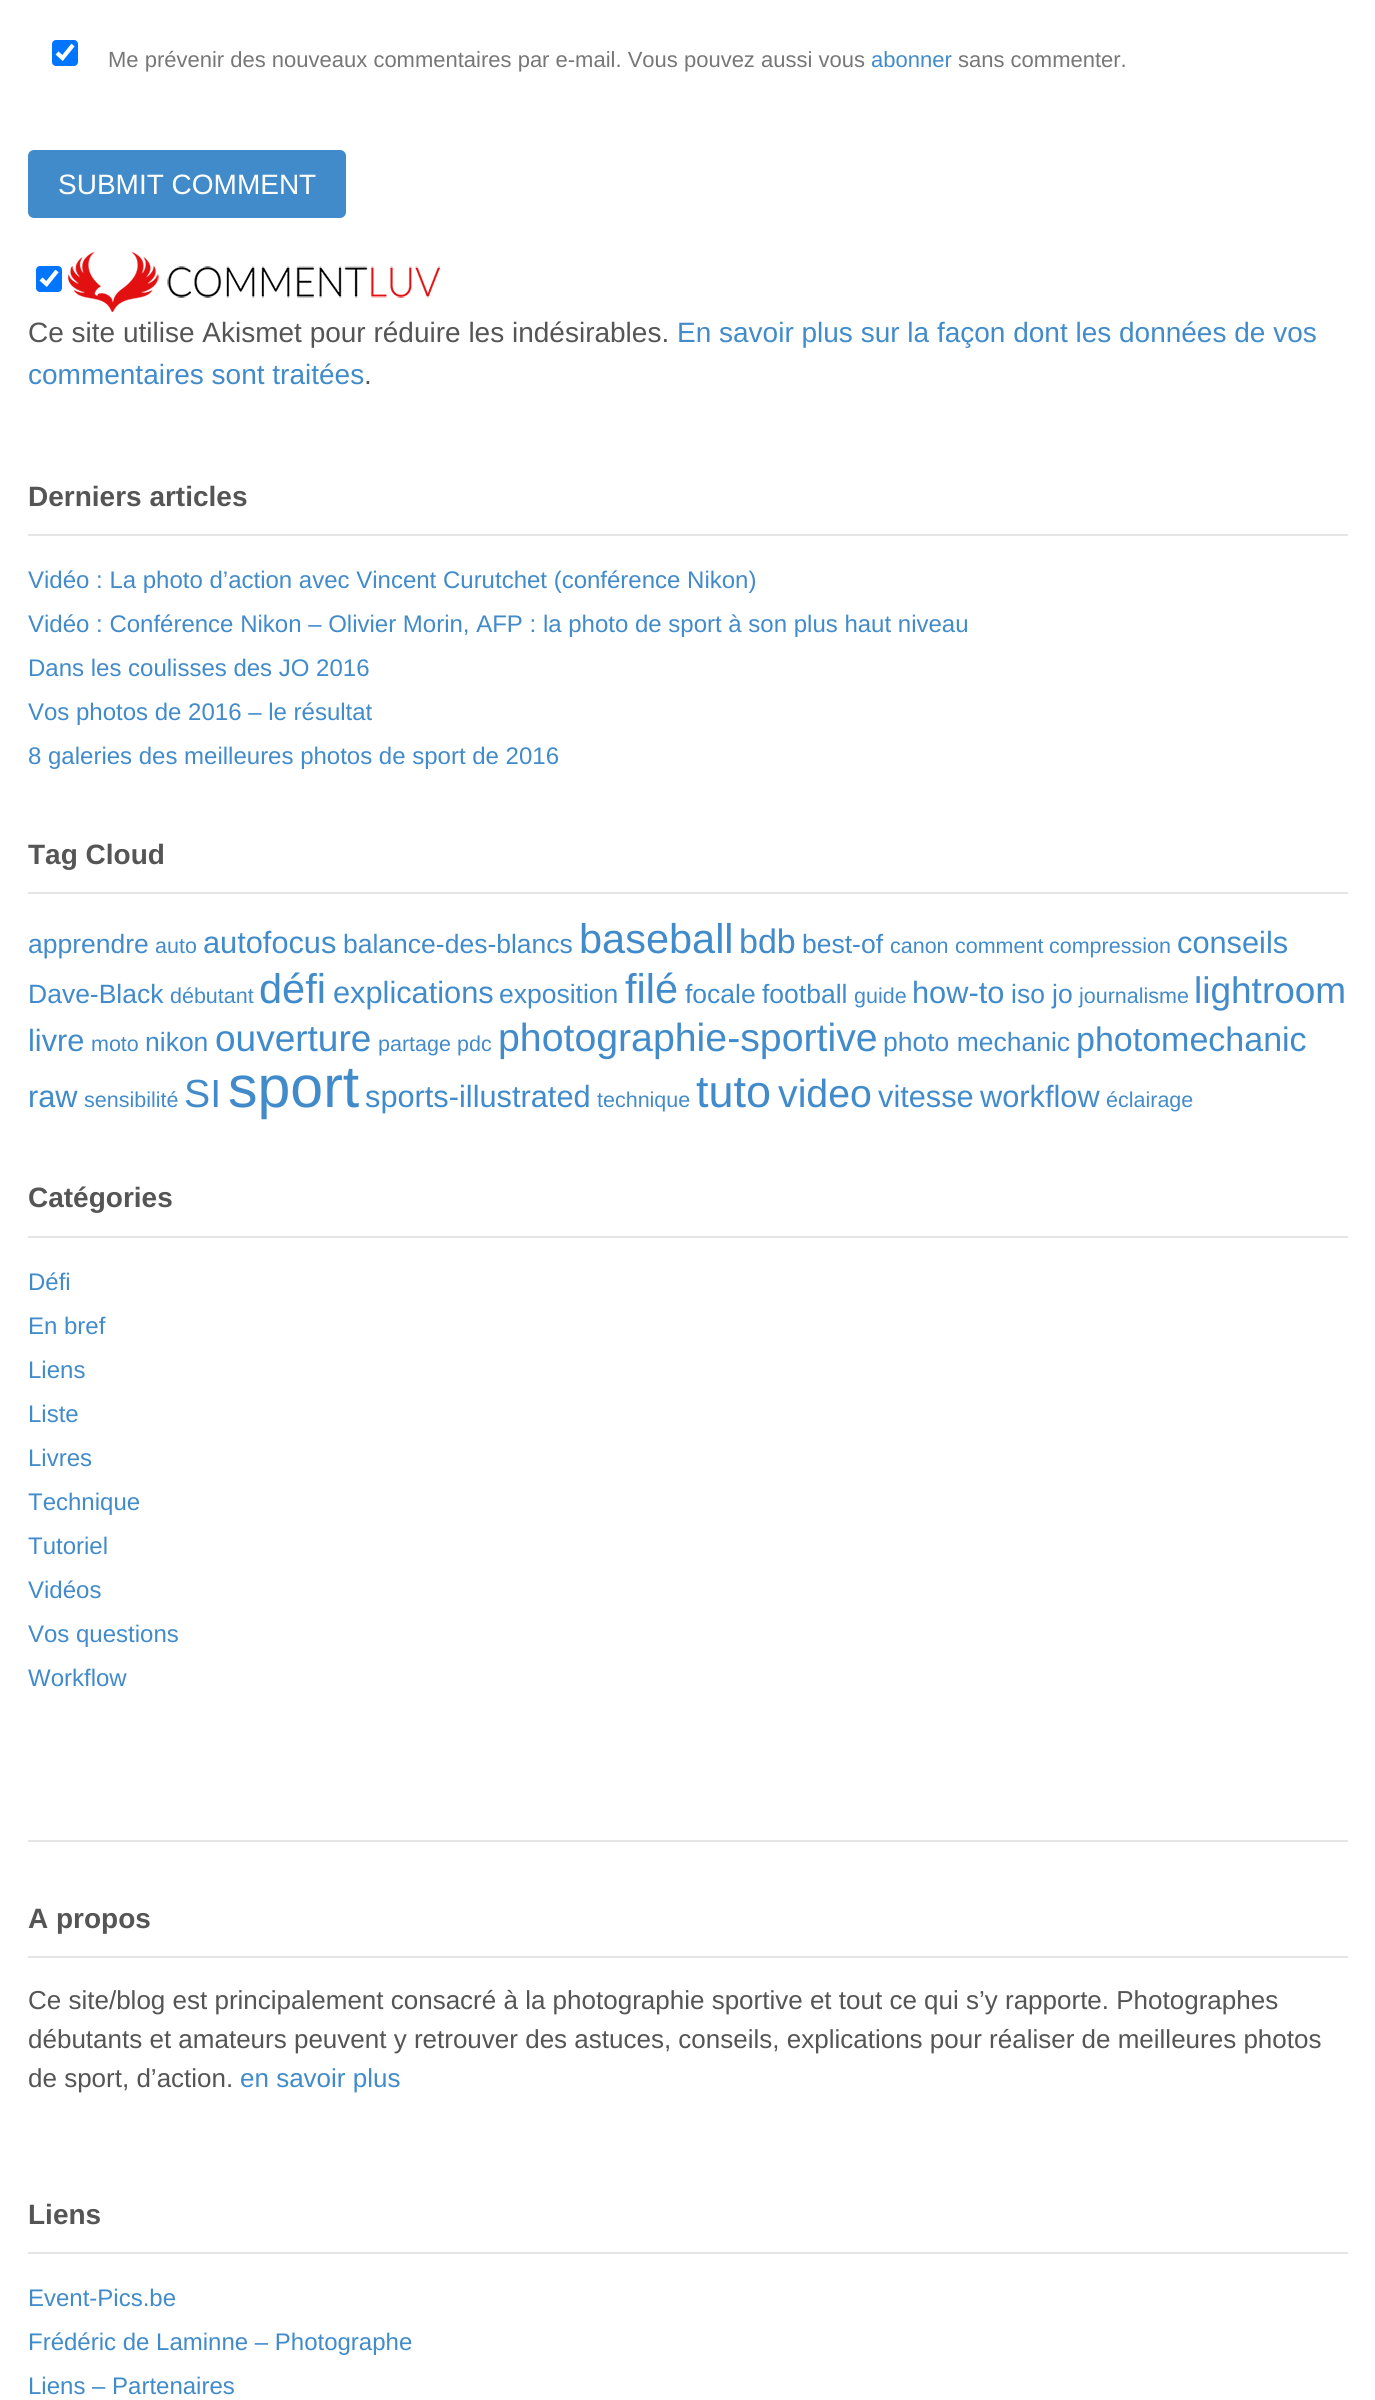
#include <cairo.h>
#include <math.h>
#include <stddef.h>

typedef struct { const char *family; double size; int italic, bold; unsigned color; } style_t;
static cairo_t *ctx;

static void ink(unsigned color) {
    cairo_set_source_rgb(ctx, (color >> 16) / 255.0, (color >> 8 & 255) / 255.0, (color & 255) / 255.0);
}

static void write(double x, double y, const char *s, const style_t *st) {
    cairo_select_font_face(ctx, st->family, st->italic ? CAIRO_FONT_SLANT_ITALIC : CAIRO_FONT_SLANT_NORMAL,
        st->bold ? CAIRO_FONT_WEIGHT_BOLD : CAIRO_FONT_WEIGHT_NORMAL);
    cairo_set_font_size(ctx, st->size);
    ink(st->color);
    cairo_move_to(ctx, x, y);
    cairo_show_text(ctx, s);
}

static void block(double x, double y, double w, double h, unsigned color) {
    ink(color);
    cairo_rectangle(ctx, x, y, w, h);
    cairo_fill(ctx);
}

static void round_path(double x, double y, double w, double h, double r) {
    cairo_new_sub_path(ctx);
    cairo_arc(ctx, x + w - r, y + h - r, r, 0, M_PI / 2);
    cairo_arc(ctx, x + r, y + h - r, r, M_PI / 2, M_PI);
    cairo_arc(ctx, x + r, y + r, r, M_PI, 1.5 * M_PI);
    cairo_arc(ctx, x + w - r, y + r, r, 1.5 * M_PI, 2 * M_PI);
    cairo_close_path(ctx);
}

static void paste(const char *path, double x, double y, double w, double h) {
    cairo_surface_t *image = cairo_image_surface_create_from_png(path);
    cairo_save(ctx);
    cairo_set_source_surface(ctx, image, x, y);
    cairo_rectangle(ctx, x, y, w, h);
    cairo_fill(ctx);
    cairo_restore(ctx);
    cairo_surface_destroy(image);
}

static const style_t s1 = {"Liberation Sans", 22, 0, 0, 0x777777};
static const style_t s2 = {"Liberation Sans", 22, 0, 0, 0x428bca};
static const style_t s3 = {"Liberation Sans", 28, 0, 0, 0xffffff};
static const style_t s4 = {"Liberation Sans", 28, 0, 0, 0x555555};
static const style_t s5 = {"Liberation Sans", 28, 0, 0, 0x428bca};
static const style_t s6 = {"Liberation Sans", 28, 0, 1, 0x555555};
static const style_t s7 = {"Liberation Sans", 24, 0, 0, 0x428bca};
static const style_t s8 = {"Liberation Sans", 26.5, 0, 0, 0x428bca};
static const style_t s9 = {"Liberation Sans", 21.5, 0, 0, 0x428bca};
static const style_t s10 = {"Liberation Sans", 30.75, 0, 0, 0x428bca};
static const style_t s11 = {"Liberation Sans", 41.5, 0, 0, 0x428bca};
static const style_t s12 = {"Liberation Sans", 34, 0, 0, 0x428bca};
static const style_t s13 = {"Liberation Sans", 37, 0, 0, 0x428bca};
static const style_t s14 = {"Liberation Sans", 39.25, 0, 0, 0x428bca};
static const style_t s15 = {"Liberation Sans", 59, 0, 0, 0x428bca};
static const style_t s16 = {"Liberation Sans", 45, 0, 0, 0x428bca};
static const style_t s17 = {"Liberation Sans", 26, 0, 0, 0x555555};
static const style_t s18 = {"Liberation Sans", 26, 0, 0, 0x428bca};

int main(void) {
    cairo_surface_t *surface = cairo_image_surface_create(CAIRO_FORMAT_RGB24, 1375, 2400);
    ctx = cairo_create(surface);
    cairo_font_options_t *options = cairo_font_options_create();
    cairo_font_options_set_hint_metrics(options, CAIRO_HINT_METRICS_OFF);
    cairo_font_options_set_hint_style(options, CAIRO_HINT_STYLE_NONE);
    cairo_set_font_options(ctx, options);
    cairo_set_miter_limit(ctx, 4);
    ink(0xffffff);
    cairo_paint(ctx);
    ink(0x0075ff);
    round_path(52, 40, 26, 26, 4);
    cairo_fill(ctx);
    cairo_new_path(ctx);
    cairo_move_to(ctx, 57, 53);
    cairo_line_to(ctx, 62.5, 58);
    cairo_line_to(ctx, 73, 45);
    ink(0xffffff);
    cairo_set_line_width(ctx, 4.2);
    cairo_stroke(ctx);
    write(108, 67, "Me prévenir des nouveaux commentaires par e-mail. Vous pouvez aussi vous", &s1);
    write(871, 67, "abonner", &s2);
    write(958, 67, "sans commenter.", &s1);
    ink(0x428bca);
    round_path(28, 150, 318, 68, 6);
    cairo_fill(ctx);
    write(58, 194, "SUBMIT COMMENT", &s3);
    ink(0x0075ff);
    round_path(36, 266, 26, 26, 4);
    cairo_fill(ctx);
    cairo_new_path(ctx);
    cairo_move_to(ctx, 41, 279);
    cairo_line_to(ctx, 46.5, 284);
    cairo_line_to(ctx, 57, 271);
    ink(0xffffff);
    cairo_stroke(ctx);
    paste("pic1.png", 68, 252, 372, 60);
    write(28, 342, "Ce site utilise Akismet pour réduire les indésirables.", &s4);
    write(677, 342, "En savoir plus sur la façon dont les données de vos", &s5);
    write(28, 384, "commentaires sont traitées", &s5);
    write(364, 384, ".", &s4);
    block(28, 534, 1320, 2, 0xe6e6e6);
    write(28, 506, "Derniers articles", &s6);
    write(28, 588, "Vidéo : La photo d’action avec Vincent Curutchet (conférence Nikon)", &s7);
    write(28, 632, "Vidéo : Conférence Nikon – Olivier Morin, AFP : la photo de sport à son plus haut niveau", &s7);
    write(28, 676, "Dans les coulisses des JO 2016", &s7);
    write(28, 720, "Vos photos de 2016 – le résultat", &s7);
    write(28, 764, "8 galeries des meilleures photos de sport de 2016", &s7);
    block(28, 892, 1320, 2, 0xe6e6e6);
    write(28, 864, "Tag Cloud", &s6);
    write(28, 953, "apprendre", &s8);
    write(155, 953, "auto", &s9);
    write(203, 953, "autofocus", &s10);
    write(343, 953, "balance-des-blancs", &s8);
    write(579, 953, "baseball", &s11);
    write(739, 953, "bdb", &s12);
    write(802, 953, "best-of", &s8);
    write(890, 953, "canon", &s9);
    write(955, 953, "comment", &s9);
    write(1049, 953, "compression", &s9);
    write(1177, 953, "conseils", &s10);
    write(28, 1003, "Dave-Black", &s8);
    write(170, 1003, "débutant", &s9);
    write(259, 1003, "défi", &s11);
    write(333, 1003, "explications", &s10);
    write(499, 1003, "exposition", &s8);
    write(625, 1003, "filé", &s11);
    write(685, 1003, "focale", &s8);
    write(762, 1003, "football", &s8);
    write(854, 1003, "guide", &s9);
    write(912, 1003, "how-to", &s10);
    write(1011, 1003, "iso", &s8);
    write(1052, 1003, "jo", &s8);
    write(1079, 1003, "journalisme", &s9);
    write(1194, 1003, "lightroom", &s13);
    write(28, 1051, "livre", &s10);
    write(91, 1051, "moto", &s9);
    write(145, 1051, "nikon", &s8);
    write(215, 1051, "ouverture", &s13);
    write(378, 1051, "partage", &s9);
    write(457, 1051, "pdc", &s9);
    write(498, 1051, "photographie-sportive", &s14);
    write(883, 1051, "photo mechanic", &s8);
    write(1076, 1051, "photomechanic", &s12);
    write(28, 1107, "raw", &s10);
    write(84, 1107, "sensibilité", &s9);
    write(184, 1107, "SI", &s14);
    write(228, 1107, "sport", &s15);
    write(365, 1107, "sports-illustrated", &s10);
    write(597, 1107, "technique", &s9);
    write(696, 1107, "tuto", &s16);
    write(778, 1107, "video", &s14);
    write(878, 1107, "vitesse", &s10);
    write(980, 1107, "workflow", &s10);
    write(1106, 1107, "éclairage", &s9);
    block(28, 1236, 1320, 2, 0xe6e6e6);
    write(28, 1207, "Catégories", &s6);
    write(28, 1290, "Défi", &s7);
    write(28, 1334, "En bref", &s7);
    write(28, 1378, "Liens", &s7);
    write(28, 1422, "Liste", &s7);
    write(28, 1466, "Livres", &s7);
    write(28, 1510, "Technique", &s7);
    write(28, 1554, "Tutoriel", &s7);
    write(28, 1598, "Vidéos", &s7);
    write(28, 1642, "Vos questions", &s7);
    write(28, 1686, "Workflow", &s7);
    block(28, 1840, 1320, 2, 0xe6e6e6);
    block(28, 1956, 1320, 2, 0xe6e6e6);
    write(28, 1928, "A propos", &s6);
    write(28, 2009, "Ce site/blog est principalement consacré à la photographie sportive et tout ce qui s’y rapporte. Photographes", &s17);
    write(28, 2048, "débutants et amateurs peuvent y retrouver des astuces, conseils, explications pour réaliser de meilleures photos", &s17);
    write(28, 2087, "de sport, d’action.", &s17);
    write(240, 2087, "en savoir plus", &s18);
    block(28, 2252, 1320, 2, 0xe6e6e6);
    write(28, 2224, "Liens", &s6);
    write(28, 2306, "Event-Pics.be", &s7);
    write(28, 2350, "Frédéric de Laminne – Photographe", &s7);
    write(28, 2394, "Liens – Partenaires", &s7);
    cairo_surface_write_to_png(surface, "screenshot.png");
    cairo_font_options_destroy(options);
    cairo_destroy(ctx);
    cairo_surface_destroy(surface);
    return 0;
}
